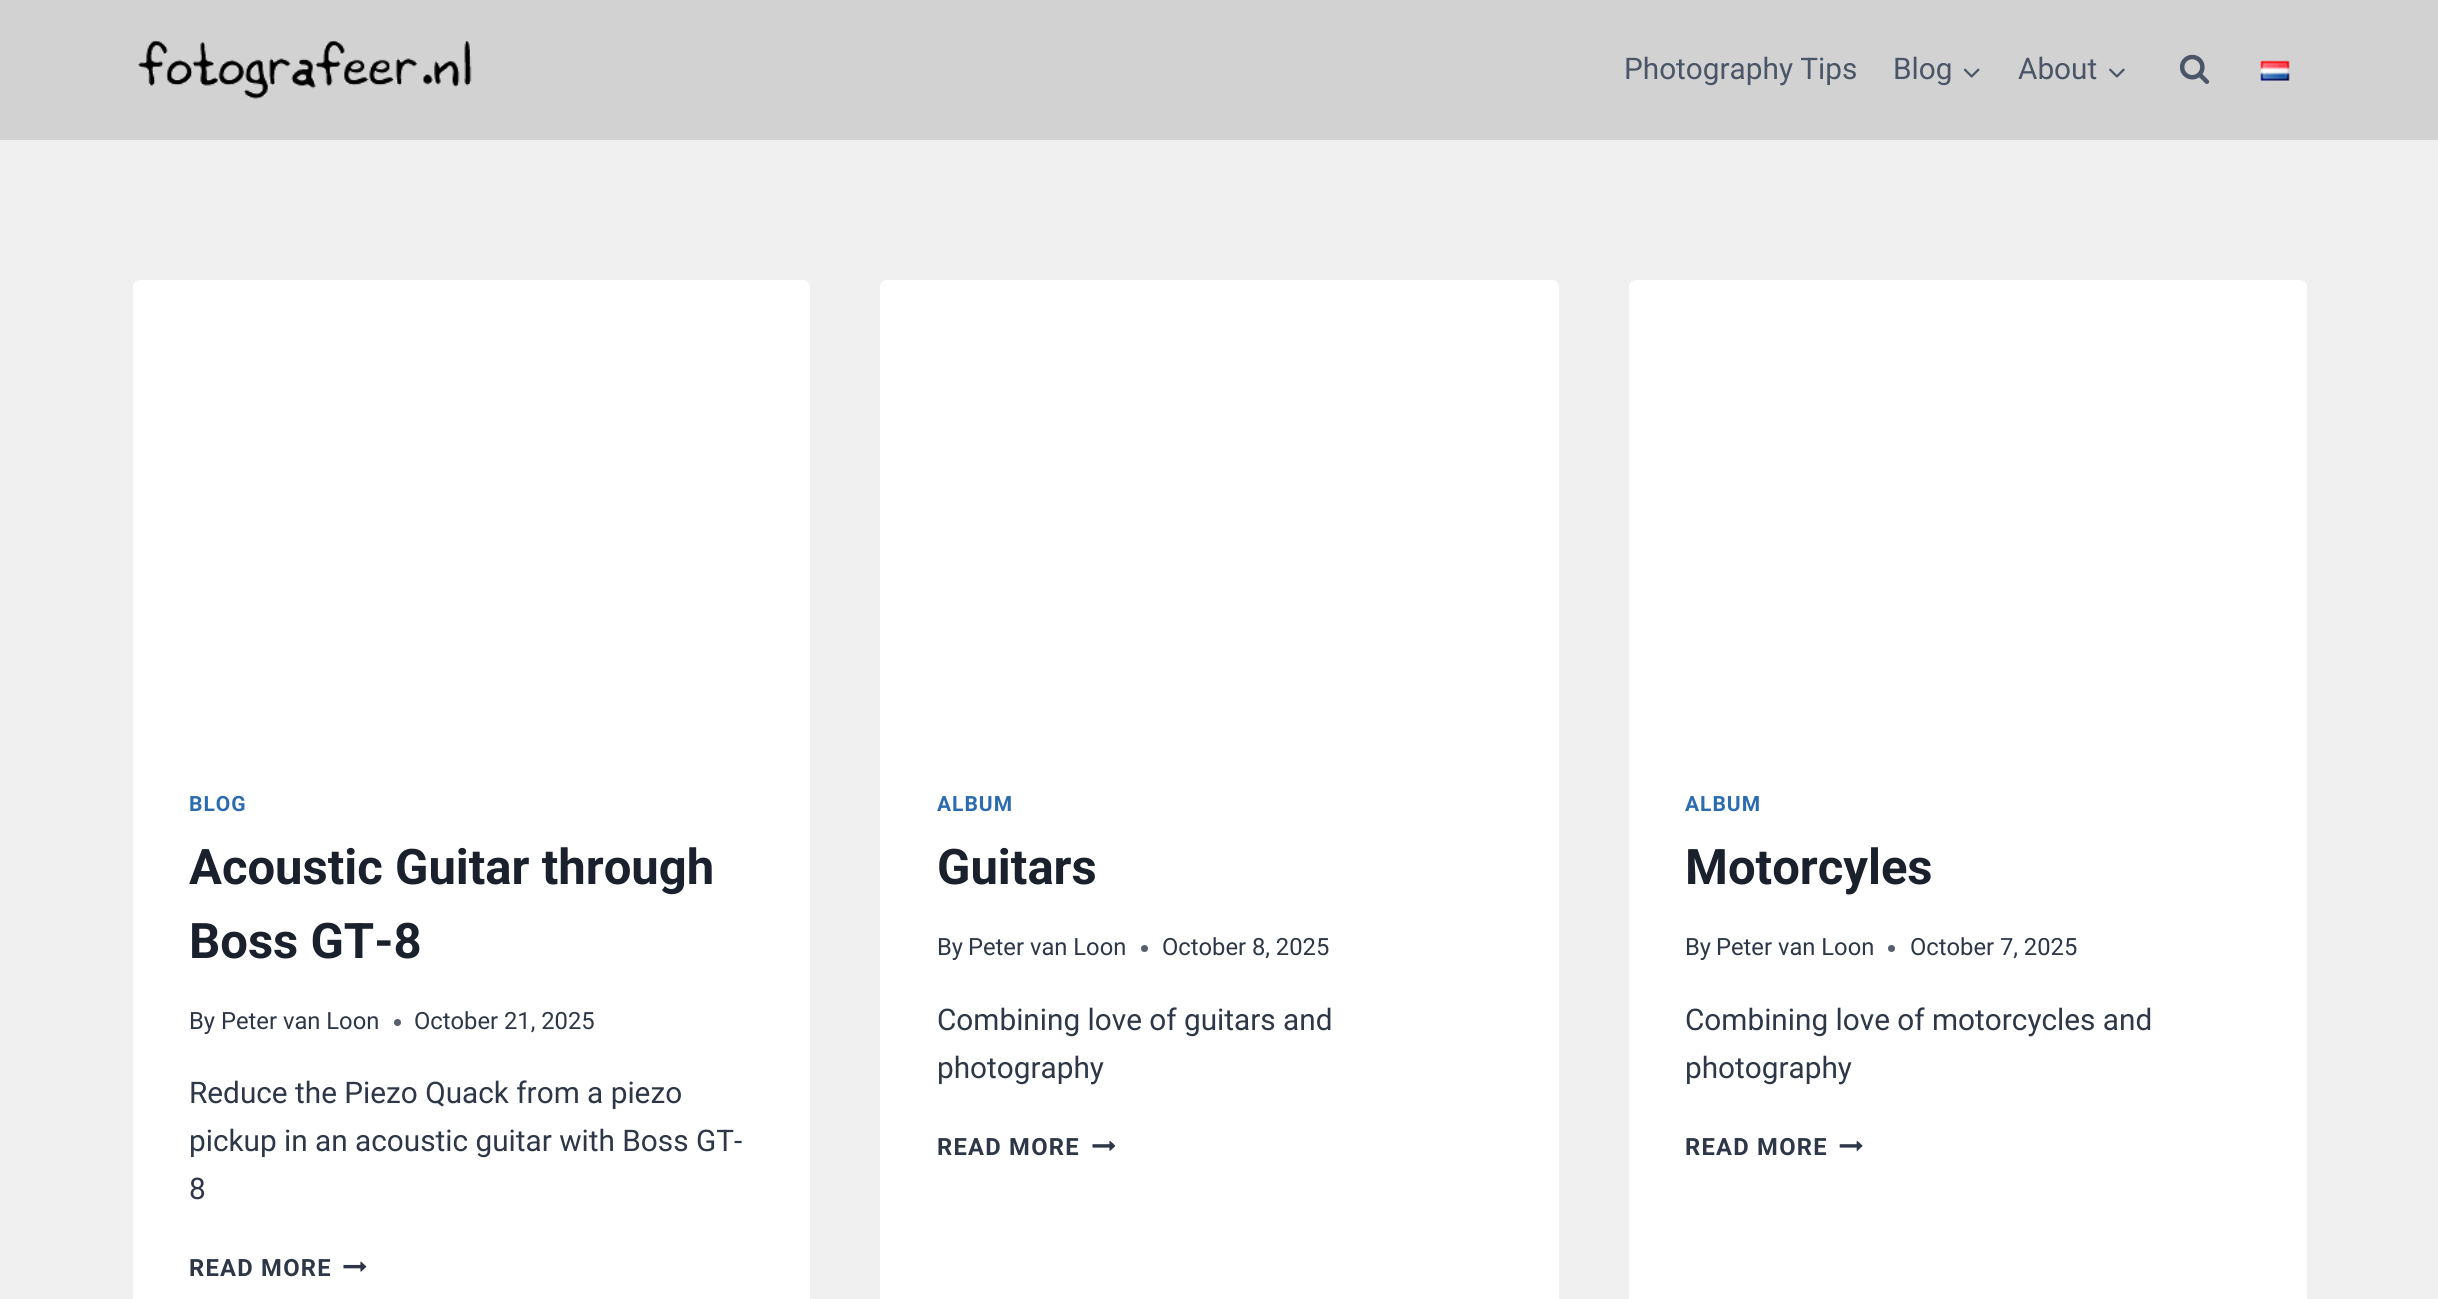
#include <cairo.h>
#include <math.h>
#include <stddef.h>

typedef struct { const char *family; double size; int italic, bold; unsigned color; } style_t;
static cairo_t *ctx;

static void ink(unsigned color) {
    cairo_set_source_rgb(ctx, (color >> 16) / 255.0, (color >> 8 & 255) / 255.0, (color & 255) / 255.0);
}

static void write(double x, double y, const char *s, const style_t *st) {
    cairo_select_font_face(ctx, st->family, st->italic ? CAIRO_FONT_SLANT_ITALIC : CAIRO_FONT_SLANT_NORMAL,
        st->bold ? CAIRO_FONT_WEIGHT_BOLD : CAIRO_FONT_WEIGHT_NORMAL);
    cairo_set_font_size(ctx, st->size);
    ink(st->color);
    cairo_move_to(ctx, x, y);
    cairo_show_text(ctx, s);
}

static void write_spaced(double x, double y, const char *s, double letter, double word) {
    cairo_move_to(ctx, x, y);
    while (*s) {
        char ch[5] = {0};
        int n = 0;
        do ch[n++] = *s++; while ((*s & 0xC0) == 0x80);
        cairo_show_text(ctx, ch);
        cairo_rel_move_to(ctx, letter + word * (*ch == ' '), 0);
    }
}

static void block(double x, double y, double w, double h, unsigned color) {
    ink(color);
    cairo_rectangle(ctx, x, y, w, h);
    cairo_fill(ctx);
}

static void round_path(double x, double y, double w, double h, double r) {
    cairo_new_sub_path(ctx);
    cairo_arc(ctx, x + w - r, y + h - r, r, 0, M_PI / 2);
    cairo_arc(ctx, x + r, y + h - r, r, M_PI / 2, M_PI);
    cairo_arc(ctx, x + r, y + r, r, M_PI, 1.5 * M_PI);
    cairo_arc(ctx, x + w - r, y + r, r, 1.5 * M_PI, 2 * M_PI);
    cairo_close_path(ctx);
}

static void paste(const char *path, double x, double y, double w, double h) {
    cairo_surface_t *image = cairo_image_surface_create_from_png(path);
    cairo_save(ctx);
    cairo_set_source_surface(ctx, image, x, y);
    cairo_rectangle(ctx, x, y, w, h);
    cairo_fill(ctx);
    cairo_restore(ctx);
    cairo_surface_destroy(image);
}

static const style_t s1 = {"Roboto", 29.75, 0, 0, 0x4a5568};
static const style_t s2 = {"Roboto", 49, 0, 1, 0x1a202c};
static const style_t s3 = {"Roboto", 23.75, 0, 0, 0x2d3748};
static const style_t s4 = {"Roboto", 29.75, 0, 0, 0x2d3748};

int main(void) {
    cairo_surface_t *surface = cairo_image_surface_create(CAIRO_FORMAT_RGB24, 2438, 1299);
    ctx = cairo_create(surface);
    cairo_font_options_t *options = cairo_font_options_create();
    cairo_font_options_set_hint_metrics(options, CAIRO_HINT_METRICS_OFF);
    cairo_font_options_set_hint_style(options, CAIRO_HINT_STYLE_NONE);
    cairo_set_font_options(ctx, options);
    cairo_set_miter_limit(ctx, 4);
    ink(0xf0f0f0);
    cairo_paint(ctx);
    block(0, 0, 2438, 140, 0xd2d2d2);
    paste("pic1.png", 138, 40, 334, 59);
    write(1624, 79, "Photography Tips", &s1);
    write(1893, 79, "Blog", &s1);
    paste("pic2.png", 1963, 68, 17, 10);
    write(2018, 79, "About", &s1);
    paste("pic3.png", 2109, 68, 16, 10);
    paste("pic4.png", 2179, 54, 31, 30);
    paste("pic5.png", 2260, 60, 30, 21);
    ink(0xffffff);
    round_path(133, 280, 677, 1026, 7);
    cairo_fill(ctx);
    cairo_select_font_face(ctx, "Roboto", CAIRO_FONT_SLANT_NORMAL, CAIRO_FONT_WEIGHT_BOLD);
    cairo_set_font_size(ctx, 21);
    ink(0x2b6cb0);
    write_spaced(189, 811, "BLOG", 1, 0);
    write(189, 884, "Acoustic Guitar through", &s2);
    write(189, 958, "Boss GT-8", &s2);
    write(189, 1029, "By", &s3);
    write(221, 1029, "Peter van Loon", &s3);
    ink(0x575f6d);
    cairo_new_path(ctx);
    cairo_arc(ctx, 397.5, 1022.5, 3.5, 0, 2 * M_PI);
    cairo_fill(ctx);
    write(414, 1029, "October 21, 2025", &s3);
    write(189, 1103, "Reduce the Piezo Quack from a piezo", &s4);
    write(189, 1151, "pickup in an acoustic guitar with Boss GT-", &s4);
    write(189, 1199, "8", &s4);
    cairo_select_font_face(ctx, "Roboto", CAIRO_FONT_SLANT_NORMAL, CAIRO_FONT_WEIGHT_BOLD);
    cairo_set_font_size(ctx, 23.75);
    write_spaced(189, 1276, "READ MORE", 1.25, 0);
    paste("pic6.png", 343, 1261, 24, 11);
    ink(0xffffff);
    round_path(880, 280, 679, 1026, 7);
    cairo_fill(ctx);
    cairo_set_font_size(ctx, 21);
    ink(0x2b6cb0);
    write_spaced(937, 811, "ALBUM", 1, 0);
    write(937, 884, "Guitars", &s2);
    write(937, 955, "By", &s3);
    write(968, 955, "Peter van Loon", &s3);
    ink(0x575f6d);
    cairo_new_path(ctx);
    cairo_arc(ctx, 1144.5, 948.5, 3.5, 0, 2 * M_PI);
    cairo_fill(ctx);
    write(1162, 955, "October 8, 2025", &s3);
    write(937, 1030, "Combining love of guitars and", &s4);
    write(937, 1078, "photography", &s4);
    cairo_select_font_face(ctx, "Roboto", CAIRO_FONT_SLANT_NORMAL, CAIRO_FONT_WEIGHT_BOLD);
    cairo_set_font_size(ctx, 23.75);
    write_spaced(937, 1155, "READ MORE", 1.25, 0);
    paste("pic7.png", 1092, 1140, 23, 11);
    ink(0xffffff);
    round_path(1629, 280, 678, 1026, 7);
    cairo_fill(ctx);
    cairo_set_font_size(ctx, 21);
    ink(0x2b6cb0);
    write_spaced(1685, 811, "ALBUM", 1, 0);
    write(1685, 884, "Motorcyles", &s2);
    write(1685, 955, "By", &s3);
    write(1716, 955, "Peter van Loon", &s3);
    ink(0x575f6d);
    cairo_new_path(ctx);
    cairo_arc(ctx, 1891.5, 948.5, 3.5, 0, 2 * M_PI);
    cairo_fill(ctx);
    write(1910, 955, "October 7, 2025", &s3);
    write(1685, 1030, "Combining love of motorcycles and", &s4);
    write(1685, 1078, "photography", &s4);
    cairo_select_font_face(ctx, "Roboto", CAIRO_FONT_SLANT_NORMAL, CAIRO_FONT_WEIGHT_BOLD);
    cairo_set_font_size(ctx, 23.75);
    write_spaced(1685, 1155, "READ MORE", 1.25, 0);
    paste("pic8.png", 1839, 1140, 24, 11);
    cairo_surface_write_to_png(surface, "screenshot.png");
    cairo_font_options_destroy(options);
    cairo_destroy(ctx);
    cairo_surface_destroy(surface);
    return 0;
}
